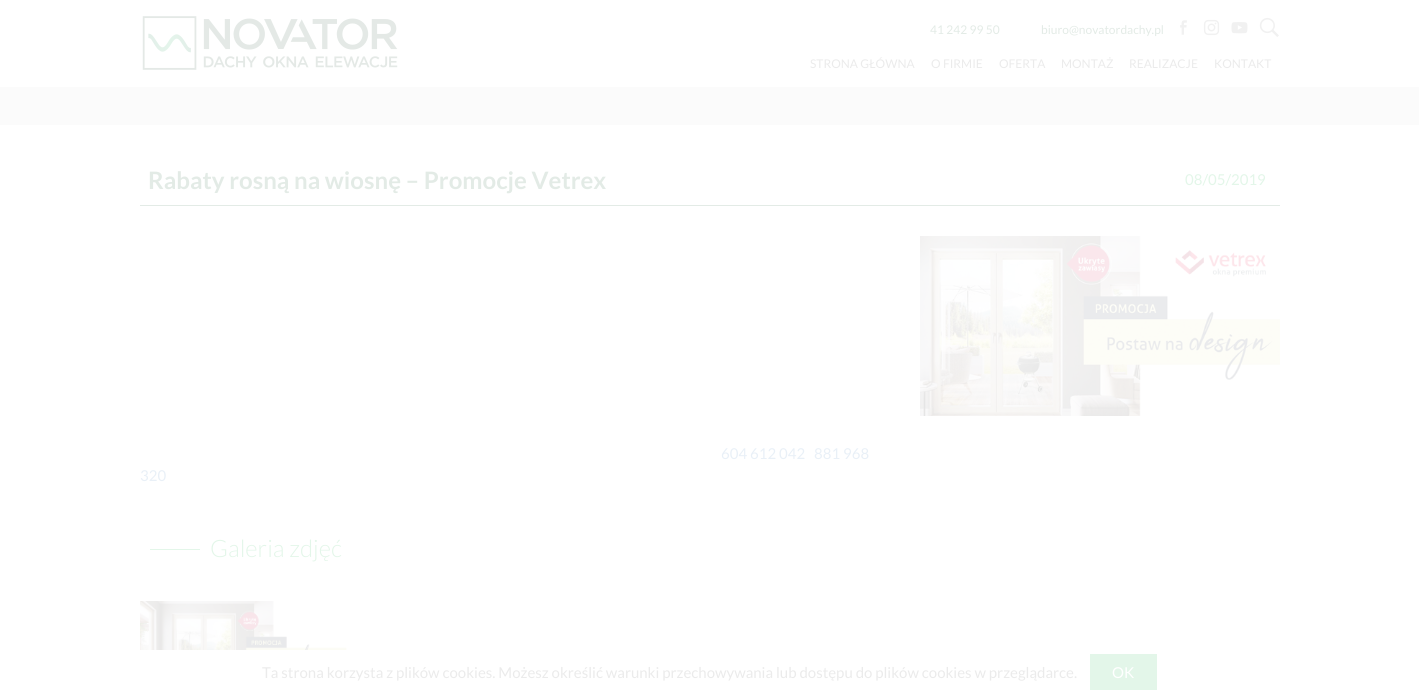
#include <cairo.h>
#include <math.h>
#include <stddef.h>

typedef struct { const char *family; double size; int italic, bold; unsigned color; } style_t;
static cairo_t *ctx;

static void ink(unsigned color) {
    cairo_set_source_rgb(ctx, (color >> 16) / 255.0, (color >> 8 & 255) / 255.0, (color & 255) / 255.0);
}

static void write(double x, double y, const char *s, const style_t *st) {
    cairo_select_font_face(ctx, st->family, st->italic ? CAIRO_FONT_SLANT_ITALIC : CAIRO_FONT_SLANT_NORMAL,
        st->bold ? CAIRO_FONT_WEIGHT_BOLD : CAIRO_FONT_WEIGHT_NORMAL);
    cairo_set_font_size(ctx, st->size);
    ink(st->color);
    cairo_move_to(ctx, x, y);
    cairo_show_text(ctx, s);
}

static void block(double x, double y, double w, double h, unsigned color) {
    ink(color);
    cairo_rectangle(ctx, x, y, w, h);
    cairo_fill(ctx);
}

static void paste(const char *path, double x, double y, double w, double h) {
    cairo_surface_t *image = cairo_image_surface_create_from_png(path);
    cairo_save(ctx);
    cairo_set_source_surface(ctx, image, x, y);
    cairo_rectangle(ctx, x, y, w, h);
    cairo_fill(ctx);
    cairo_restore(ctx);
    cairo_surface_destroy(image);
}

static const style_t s1 = {"Lato", 12, 0, 0, 0xe3ebe6};
static const style_t s2 = {"Lato", 12, 0, 0, 0xebebeb};
static const style_t s3 = {"Lato", 24, 0, 1, 0xe3ebe6};
static const style_t s4 = {"Lato", 15, 0, 0, 0xe3f6e9};
static const style_t s5 = {"Lato", 15, 0, 0, 0xe9f0f7};
static const style_t s6 = {"Lato Light", 24, 0, 0, 0xe3f6e9};
static const style_t s7 = {"Lato", 15, 0, 0, 0xebebeb};
static const style_t s8 = {"Lato", 15, 0, 0, 0xffffff};

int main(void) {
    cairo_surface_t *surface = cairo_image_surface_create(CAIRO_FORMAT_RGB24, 1419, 695);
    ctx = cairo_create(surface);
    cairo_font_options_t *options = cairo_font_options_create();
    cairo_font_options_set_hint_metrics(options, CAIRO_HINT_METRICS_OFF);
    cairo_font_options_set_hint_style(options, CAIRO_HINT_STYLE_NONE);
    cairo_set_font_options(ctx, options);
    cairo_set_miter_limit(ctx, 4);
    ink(0xffffff);
    cairo_paint(ctx);
    paste("pic1.png", 142, 16, 256, 54);
    write(930, 34, "41 242 99 50", &s1);
    write(1041, 34, "biuro@novatordachy.pl", &s1);
    paste("pic2.png", 1180, 20, 7, 15);
    paste("pic3.png", 1203, 19, 17, 17);
    paste("pic4.png", 1231, 22, 17, 12);
    paste("pic5.png", 1259, 17, 20, 20);
    write(810, 68, "STRONA GŁÓWNA", &s2);
    write(931, 68, "O FIRMIE", &s2);
    write(999, 68, "OFERTA", &s2);
    write(1061, 68, "MONTAŻ", &s2);
    write(1129, 68, "REALIZACJE", &s2);
    write(1214, 68, "KONTAKT", &s2);
    block(0, 87, 1419, 38, 0xfbfbfb);
    block(140, 205, 1140, 1, 0xe3ebe6);
    write(148, 189, "Rabaty rosną na wiosnę – Promocje Vetrex", &s3);
    write(1185, 185, "08/05/2019", &s4);
    paste("pic6.png", 920, 236, 360, 180);
    write(721, 459, "604 612 042", &s5);
    write(814, 459, "881 968", &s5);
    write(140, 481, "320", &s5);
    block(150, 549, 50, 1, 0xe3f6e9);
    write(210, 557, "Galeria zdjęć", &s6);
    paste("pic7.png", 140, 601, 207, 49);
    write(262, 678, "Ta strona korzysta z plików cookies. Możesz określić warunki przechowywania lub dostępu do plików cookies w przeglądarce.", &s7);
    block(1090, 654, 67, 36, 0xe3f6e9);
    write(1112, 678, "OK", &s8);
    cairo_surface_write_to_png(surface, "screenshot.png");
    cairo_font_options_destroy(options);
    cairo_destroy(ctx);
    cairo_surface_destroy(surface);
    return 0;
}
